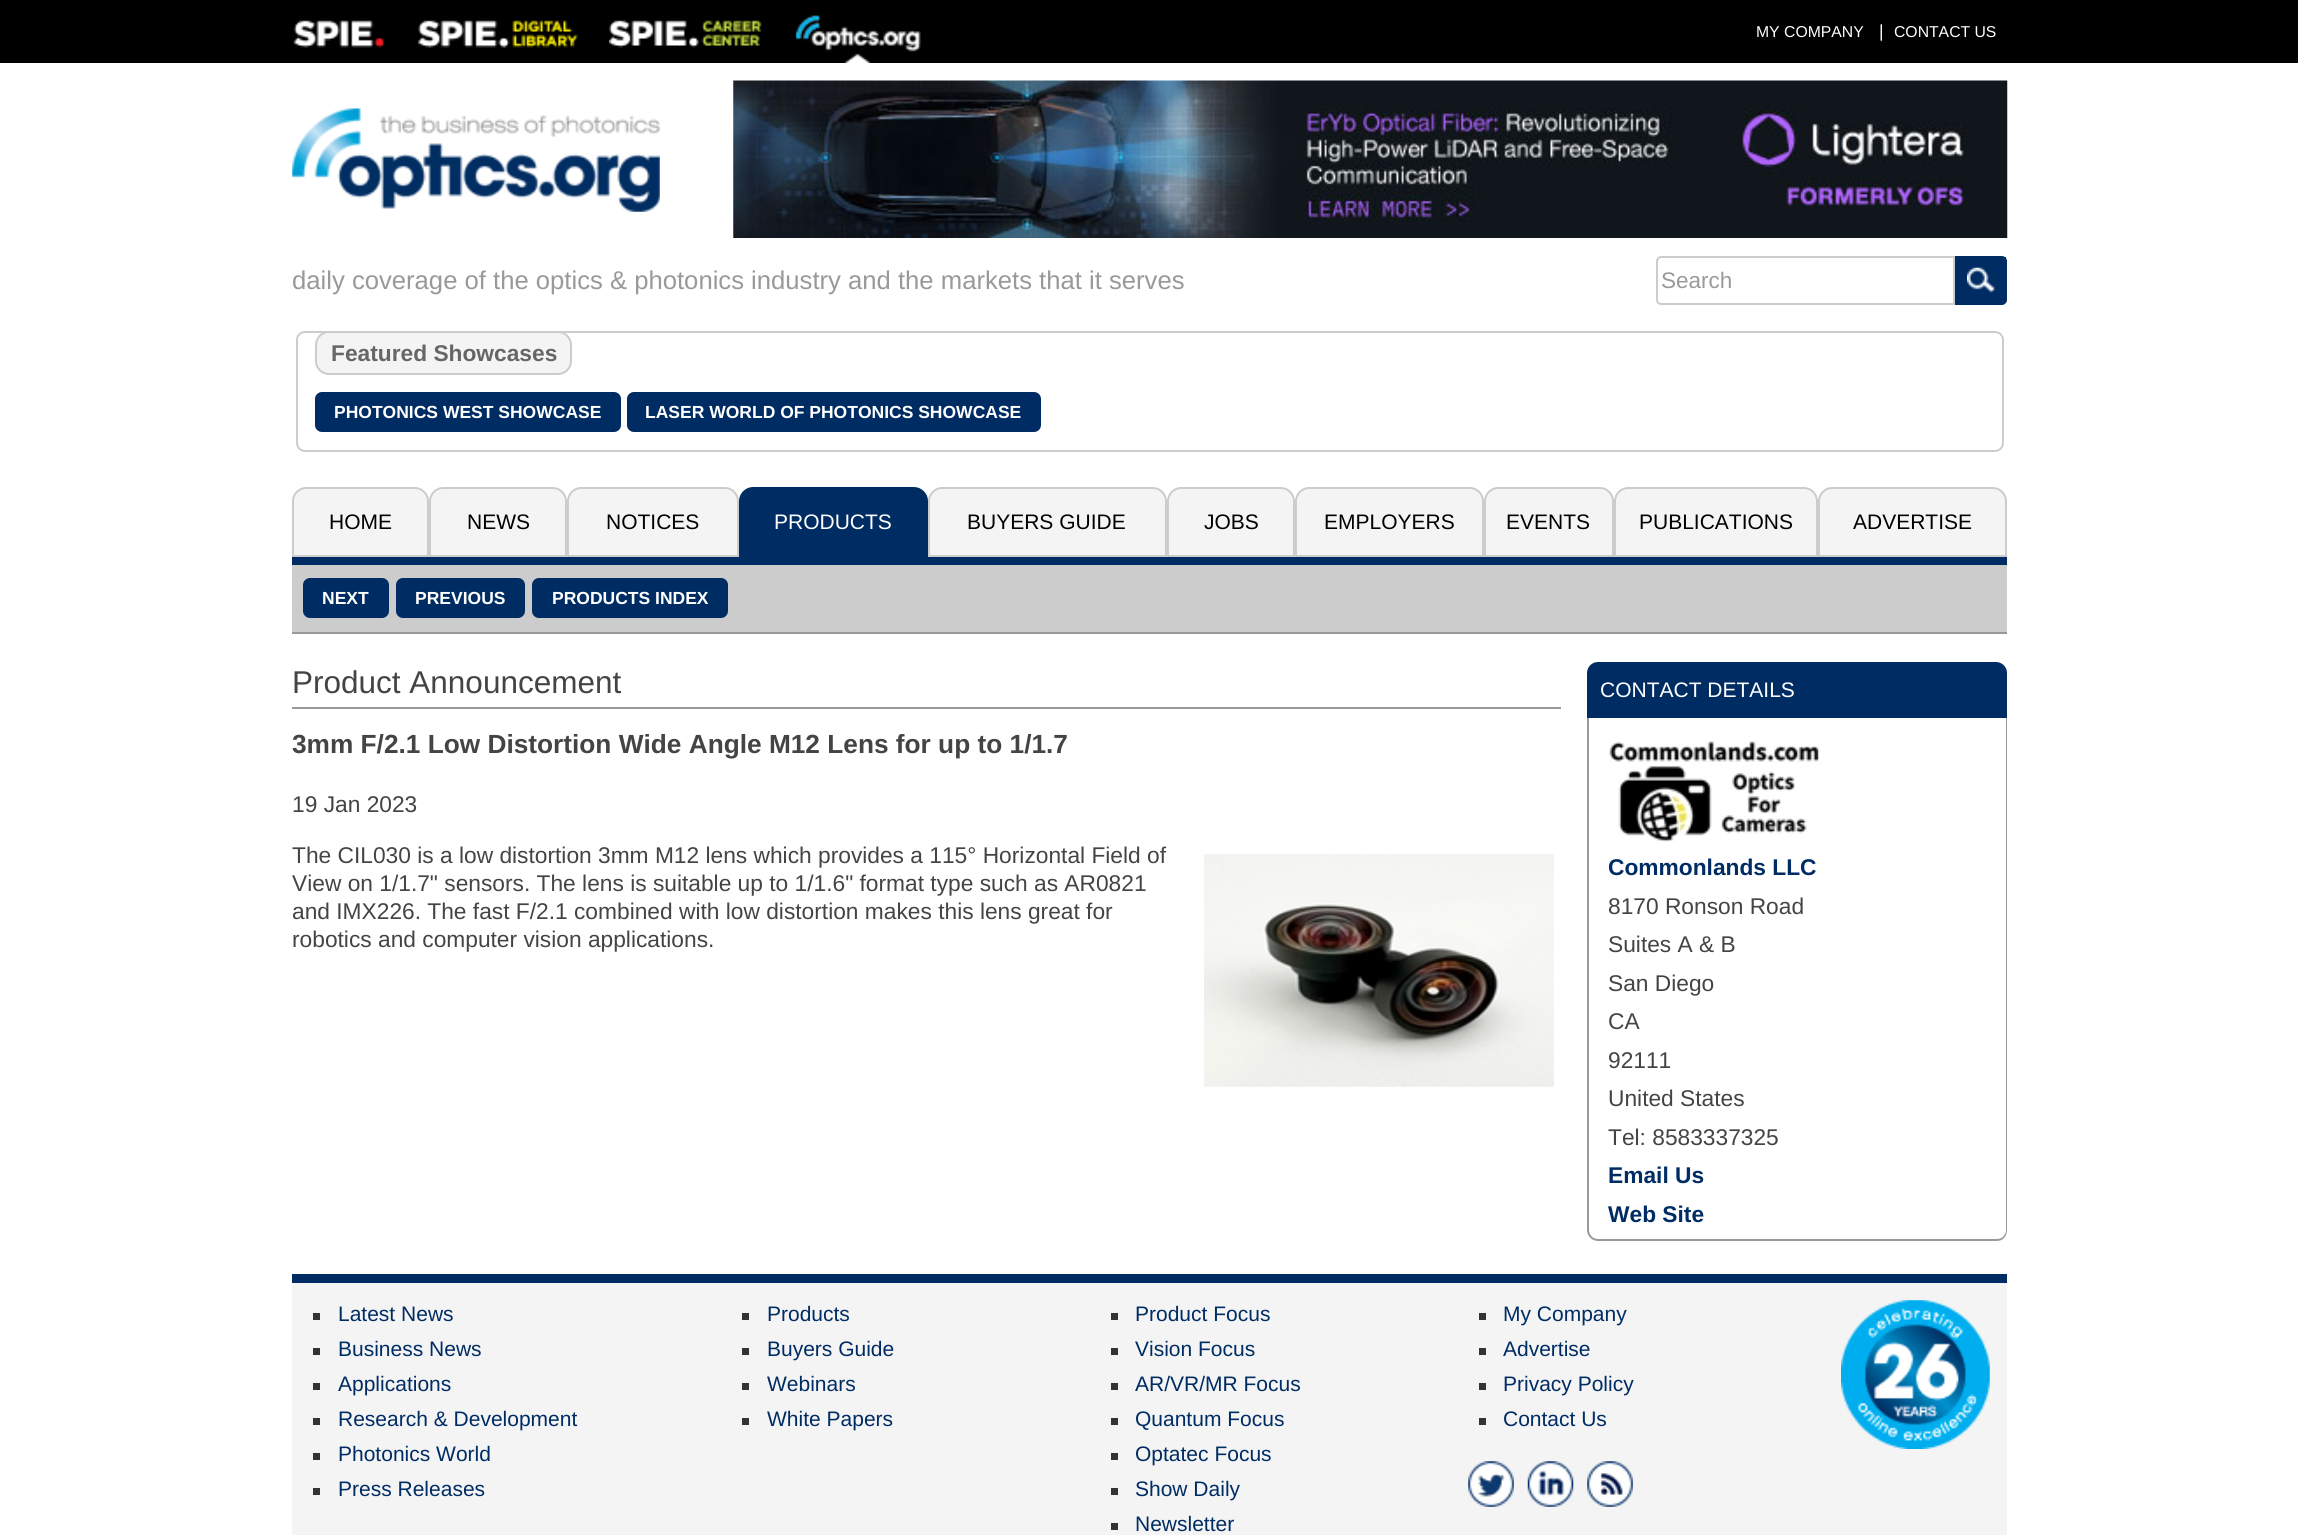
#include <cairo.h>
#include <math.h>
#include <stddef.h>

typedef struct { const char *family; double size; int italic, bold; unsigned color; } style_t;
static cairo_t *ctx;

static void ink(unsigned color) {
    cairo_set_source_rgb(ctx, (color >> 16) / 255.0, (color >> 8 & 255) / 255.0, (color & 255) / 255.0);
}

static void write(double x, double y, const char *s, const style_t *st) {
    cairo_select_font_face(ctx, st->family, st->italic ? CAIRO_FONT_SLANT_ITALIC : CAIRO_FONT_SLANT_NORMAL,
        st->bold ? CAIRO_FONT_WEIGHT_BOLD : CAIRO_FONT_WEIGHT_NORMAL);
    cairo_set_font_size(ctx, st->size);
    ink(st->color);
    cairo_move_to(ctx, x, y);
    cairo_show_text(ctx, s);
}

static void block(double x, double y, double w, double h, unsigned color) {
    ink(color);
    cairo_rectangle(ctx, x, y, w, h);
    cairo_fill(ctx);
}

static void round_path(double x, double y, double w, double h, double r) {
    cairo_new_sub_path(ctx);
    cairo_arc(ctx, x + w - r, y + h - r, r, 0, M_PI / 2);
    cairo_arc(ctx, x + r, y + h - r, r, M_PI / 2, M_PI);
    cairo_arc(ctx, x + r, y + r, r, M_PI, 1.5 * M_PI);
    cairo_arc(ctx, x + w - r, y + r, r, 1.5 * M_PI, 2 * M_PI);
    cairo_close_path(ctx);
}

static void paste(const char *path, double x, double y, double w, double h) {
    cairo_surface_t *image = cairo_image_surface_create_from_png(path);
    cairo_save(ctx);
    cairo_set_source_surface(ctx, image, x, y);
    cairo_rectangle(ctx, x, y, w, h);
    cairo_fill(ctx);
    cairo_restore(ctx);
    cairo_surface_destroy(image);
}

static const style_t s1 = {"Liberation Sans", 15.75, 0, 0, 0xffffff};
static const style_t s2 = {"Liberation Sans", 17.5, 0, 0, 0xffffff};
static const style_t s3 = {"Liberation Sans", 25.65, 0, 0, 0x999999};
static const style_t s4 = {"Liberation Sans", 22.5, 0, 0, 0x999999};
static const style_t s5 = {"Liberation Sans", 22.75, 0, 1, 0x666666};
static const style_t s6 = {"Liberation Sans", 17.5, 0, 1, 0xffffff};
static const style_t s7 = {"Liberation Sans", 21, 0, 0, 0x000000};
static const style_t s8 = {"Liberation Sans", 21, 0, 0, 0xffffff};
static const style_t s9 = {"Liberation Sans", 31.5, 0, 0, 0x444444};
static const style_t s10 = {"Liberation Sans", 26.25, 0, 1, 0x444444};
static const style_t s11 = {"Liberation Sans", 22.75, 0, 0, 0x444444};
static const style_t s12 = {"Liberation Sans", 22.75, 0, 1, 0x002c64};
static const style_t s13 = {"Liberation Sans", 21, 0, 0, 0x002c64};

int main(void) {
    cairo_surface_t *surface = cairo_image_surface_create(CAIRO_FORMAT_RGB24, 2298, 1535);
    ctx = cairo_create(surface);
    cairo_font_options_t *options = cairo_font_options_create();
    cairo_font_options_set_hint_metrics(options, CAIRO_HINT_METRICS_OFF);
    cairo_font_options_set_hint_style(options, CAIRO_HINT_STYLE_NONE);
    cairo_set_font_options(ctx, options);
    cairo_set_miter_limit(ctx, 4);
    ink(0xffffff);
    cairo_paint(ctx);
    block(0, 0, 2298, 63, 0x000000);
    paste("pic1.png", 293, 20, 92, 28);
    paste("pic2.png", 418, 20, 160, 28);
    paste("pic3.png", 609, 20, 153, 28);
    paste("pic4.png", 796, 15, 125, 48);
    write(1756, 37, "MY COMPANY", &s1);
    write(1879, 37, "|", &s2);
    write(1894, 37, "CONTACT US", &s1);
    paste("pic5.png", 292, 108, 368, 104);
    paste("pic6.png", 733, 80, 1275, 158);
    write(292, 289, "daily coverage of the optics & photonics industry and the markets that it serves", &s3);
    cairo_new_path(ctx);
    cairo_move_to(ctx, 1661, 257);
    cairo_line_to(ctx, 1954, 257);
    cairo_line_to(ctx, 1954, 304);
    cairo_line_to(ctx, 1661, 304);
    cairo_curve_to(ctx, 1659, 304, 1657, 302, 1657, 300);
    cairo_line_to(ctx, 1657, 261);
    cairo_curve_to(ctx, 1657, 259, 1659, 257, 1661, 257);
    cairo_close_path(ctx);
    ink(0xcccccc);
    cairo_stroke(ctx);
    write(1661, 288, "Search", &s4);
    cairo_new_path(ctx);
    cairo_move_to(ctx, 1956, 257);
    cairo_line_to(ctx, 2002, 257);
    cairo_curve_to(ctx, 2004, 257, 2006, 259, 2006, 261);
    cairo_line_to(ctx, 2006, 300);
    cairo_curve_to(ctx, 2006, 302, 2004, 304, 2002, 304);
    cairo_line_to(ctx, 1956, 304);
    cairo_close_path(ctx);
    ink(0x002c64);
    cairo_stroke(ctx);
    block(1957, 257, 49, 46, 0x002c64);
    paste("pic7.png", 1967, 267, 28, 26);
    round_path(297, 332, 1706, 119, 8);
    ink(0xcccccc);
    cairo_stroke(ctx);
    ink(0xf4f4f4);
    round_path(316, 332, 255, 42, 13);
    cairo_fill_preserve(ctx);
    ink(0xcccccc);
    cairo_stroke(ctx);
    write(331, 361, "Featured Showcases", &s5);
    ink(0x002c64);
    round_path(316, 393, 304, 38, 6);
    cairo_fill_preserve(ctx);
    cairo_stroke(ctx);
    write(334, 418, "PHOTONICS WEST SHOWCASE", &s6);
    ink(0x002c64);
    round_path(628, 393, 412, 38, 6);
    cairo_fill_preserve(ctx);
    cairo_stroke(ctx);
    write(645, 418, "LASER WORLD OF PHOTONICS SHOWCASE", &s6);
    block(292, 557, 1715, 8, 0x002c64);
    ink(0xf4f4f4);
    cairo_new_path(ctx);
    cairo_move_to(ctx, 306, 488);
    cairo_line_to(ctx, 415, 488);
    cairo_curve_to(ctx, 422, 488, 428, 494, 428, 501);
    cairo_line_to(ctx, 428, 556);
    cairo_line_to(ctx, 293, 556);
    cairo_line_to(ctx, 293, 501);
    cairo_curve_to(ctx, 293, 494, 299, 488, 306, 488);
    cairo_close_path(ctx);
    cairo_fill_preserve(ctx);
    ink(0xcccccc);
    cairo_stroke(ctx);
    write(329, 529, "HOME", &s7);
    ink(0xf4f4f4);
    cairo_new_path(ctx);
    cairo_move_to(ctx, 443, 488);
    cairo_line_to(ctx, 553, 488);
    cairo_curve_to(ctx, 560, 488, 566, 494, 566, 501);
    cairo_line_to(ctx, 566, 556);
    cairo_line_to(ctx, 430, 556);
    cairo_line_to(ctx, 430, 501);
    cairo_curve_to(ctx, 430, 494, 436, 488, 443, 488);
    cairo_close_path(ctx);
    cairo_fill_preserve(ctx);
    ink(0xcccccc);
    cairo_stroke(ctx);
    write(467, 529, "NEWS", &s7);
    ink(0xf4f4f4);
    cairo_new_path(ctx);
    cairo_move_to(ctx, 581, 488);
    cairo_line_to(ctx, 725, 488);
    cairo_curve_to(ctx, 732, 488, 738, 494, 738, 501);
    cairo_line_to(ctx, 738, 556);
    cairo_line_to(ctx, 568, 556);
    cairo_line_to(ctx, 568, 501);
    cairo_curve_to(ctx, 568, 494, 574, 488, 581, 488);
    cairo_close_path(ctx);
    cairo_fill_preserve(ctx);
    ink(0xcccccc);
    cairo_stroke(ctx);
    write(606, 529, "NOTICES", &s7);
    ink(0x002c64);
    cairo_new_path(ctx);
    cairo_move_to(ctx, 753, 488);
    cairo_line_to(ctx, 914, 488);
    cairo_curve_to(ctx, 921, 488, 927, 494, 927, 501);
    cairo_line_to(ctx, 927, 556);
    cairo_line_to(ctx, 740, 556);
    cairo_line_to(ctx, 740, 501);
    cairo_curve_to(ctx, 740, 494, 746, 488, 753, 488);
    cairo_close_path(ctx);
    cairo_fill_preserve(ctx);
    cairo_stroke(ctx);
    write(774, 529, "PRODUCTS", &s8);
    ink(0xf4f4f4);
    cairo_new_path(ctx);
    cairo_move_to(ctx, 942, 488);
    cairo_line_to(ctx, 1153, 488);
    cairo_curve_to(ctx, 1160, 488, 1166, 494, 1166, 501);
    cairo_line_to(ctx, 1166, 556);
    cairo_line_to(ctx, 929, 556);
    cairo_line_to(ctx, 929, 501);
    cairo_curve_to(ctx, 929, 494, 935, 488, 942, 488);
    cairo_close_path(ctx);
    cairo_fill_preserve(ctx);
    ink(0xcccccc);
    cairo_stroke(ctx);
    write(967, 529, "BUYERS GUIDE", &s7);
    ink(0xf4f4f4);
    cairo_new_path(ctx);
    cairo_move_to(ctx, 1181, 488);
    cairo_line_to(ctx, 1281, 488);
    cairo_curve_to(ctx, 1288, 488, 1294, 494, 1294, 501);
    cairo_line_to(ctx, 1294, 556);
    cairo_line_to(ctx, 1168, 556);
    cairo_line_to(ctx, 1168, 501);
    cairo_curve_to(ctx, 1168, 494, 1174, 488, 1181, 488);
    cairo_close_path(ctx);
    cairo_fill_preserve(ctx);
    ink(0xcccccc);
    cairo_stroke(ctx);
    write(1204, 529, "JOBS", &s7);
    ink(0xf4f4f4);
    cairo_new_path(ctx);
    cairo_move_to(ctx, 1309, 488);
    cairo_line_to(ctx, 1470, 488);
    cairo_curve_to(ctx, 1477, 488, 1483, 494, 1483, 501);
    cairo_line_to(ctx, 1483, 556);
    cairo_line_to(ctx, 1296, 556);
    cairo_line_to(ctx, 1296, 501);
    cairo_curve_to(ctx, 1296, 494, 1302, 488, 1309, 488);
    cairo_close_path(ctx);
    cairo_fill_preserve(ctx);
    ink(0xcccccc);
    cairo_stroke(ctx);
    write(1324, 529, "EMPLOYERS", &s7);
    ink(0xf4f4f4);
    cairo_new_path(ctx);
    cairo_move_to(ctx, 1498, 488);
    cairo_line_to(ctx, 1600, 488);
    cairo_curve_to(ctx, 1607, 488, 1613, 494, 1613, 501);
    cairo_line_to(ctx, 1613, 556);
    cairo_line_to(ctx, 1485, 556);
    cairo_line_to(ctx, 1485, 501);
    cairo_curve_to(ctx, 1485, 494, 1491, 488, 1498, 488);
    cairo_close_path(ctx);
    cairo_fill_preserve(ctx);
    ink(0xcccccc);
    cairo_stroke(ctx);
    write(1506, 529, "EVENTS", &s7);
    ink(0xf4f4f4);
    cairo_new_path(ctx);
    cairo_move_to(ctx, 1628, 488);
    cairo_line_to(ctx, 1804, 488);
    cairo_curve_to(ctx, 1811, 488, 1817, 494, 1817, 501);
    cairo_line_to(ctx, 1817, 556);
    cairo_line_to(ctx, 1615, 556);
    cairo_line_to(ctx, 1615, 501);
    cairo_curve_to(ctx, 1615, 494, 1621, 488, 1628, 488);
    cairo_close_path(ctx);
    cairo_fill_preserve(ctx);
    ink(0xcccccc);
    cairo_stroke(ctx);
    write(1639, 529, "PUBLICATIONS", &s7);
    ink(0xf4f4f4);
    cairo_new_path(ctx);
    cairo_move_to(ctx, 1832, 488);
    cairo_line_to(ctx, 1993, 488);
    cairo_curve_to(ctx, 2000, 488, 2006, 494, 2006, 501);
    cairo_line_to(ctx, 2006, 556);
    cairo_line_to(ctx, 1819, 556);
    cairo_line_to(ctx, 1819, 501);
    cairo_curve_to(ctx, 1819, 494, 1825, 488, 1832, 488);
    cairo_close_path(ctx);
    cairo_fill_preserve(ctx);
    ink(0xcccccc);
    cairo_stroke(ctx);
    write(1853, 529, "ADVERTISE", &s7);
    block(292, 565, 1715, 67, 0xcccccc);
    block(292, 632, 1715, 2, 0x999999);
    ink(0x002c64);
    round_path(304, 579, 84, 38, 6);
    cairo_fill_preserve(ctx);
    cairo_stroke(ctx);
    write(322, 604, "NEXT", &s6);
    ink(0x002c64);
    round_path(397, 579, 127, 38, 6);
    cairo_fill_preserve(ctx);
    cairo_stroke(ctx);
    write(415, 604, "PREVIOUS", &s6);
    ink(0x002c64);
    round_path(533, 579, 194, 38, 6);
    cairo_fill_preserve(ctx);
    cairo_stroke(ctx);
    write(552, 604, "PRODUCTS INDEX", &s6);
    block(292, 707, 1269, 2, 0x999999);
    write(292, 693, "Product Announcement", &s9);
    write(292, 753, "3mm F/2.1 Low Distortion Wide Angle M12 Lens for up to 1/1.7", &s10);
    write(292, 812, "19 Jan 2023", &s11);
    write(292, 863, "The CIL030 is a low distortion 3mm M12 lens which provides a 115° Horizontal Field of", &s11);
    write(292, 891, "View on 1/1.7\" sensors. The lens is suitable up to 1/1.6\" format type such as AR0821", &s11);
    write(292, 919, "and IMX226. The fast F/2.1 combined with low distortion makes this lens great for", &s11);
    write(292, 947, "robotics and computer vision applications.", &s11);
    paste("pic8.png", 1204, 854, 350, 233);
    ink(0x002c64);
    cairo_new_path(ctx);
    cairo_move_to(ctx, 1598, 663);
    cairo_line_to(ctx, 1996, 663);
    cairo_curve_to(ctx, 2001.5, 663, 2006, 667.5, 2006, 673);
    cairo_line_to(ctx, 2006, 717);
    cairo_line_to(ctx, 1588, 717);
    cairo_line_to(ctx, 1588, 673);
    cairo_curve_to(ctx, 1588, 667.5, 1592.5, 663, 1598, 663);
    cairo_close_path(ctx);
    cairo_fill_preserve(ctx);
    cairo_stroke(ctx);
    write(1600, 697, "CONTACT DETAILS", &s8);
    ink(0x999999);
    cairo_set_fill_rule(ctx, CAIRO_FILL_RULE_EVEN_ODD);
    cairo_new_path(ctx);
    cairo_move_to(ctx, 1587, 718);
    cairo_line_to(ctx, 2007, 718);
    cairo_line_to(ctx, 2007, 1230);
    cairo_curve_to(ctx, 2007, 1236, 2003, 1241, 1997, 1241);
    cairo_line_to(ctx, 1598, 1241);
    cairo_curve_to(ctx, 1592, 1241, 1587, 1236, 1587, 1230);
    cairo_close_path(ctx);
    cairo_move_to(ctx, 1589, 718);
    cairo_line_to(ctx, 2006, 718);
    cairo_line_to(ctx, 2006, 1230);
    cairo_curve_to(ctx, 2006, 1235, 2002, 1239, 1997, 1239);
    cairo_line_to(ctx, 1598, 1239);
    cairo_curve_to(ctx, 1593, 1239, 1589, 1235, 1589, 1230);
    cairo_close_path(ctx);
    cairo_fill(ctx);
    paste("pic9.png", 1609, 741, 210, 101);
    write(1608, 875, "Commonlands LLC", &s12);
    write(1608, 914, "8170 Ronson Road", &s11);
    write(1608, 952, "Suites A & B", &s11);
    write(1608, 991, "San Diego", &s11);
    write(1608, 1029, "CA", &s11);
    write(1608, 1068, "92111", &s11);
    write(1608, 1106, "United States", &s11);
    write(1608, 1145, "Tel: 8583337325", &s11);
    write(1608, 1183, "Email Us", &s12);
    write(1608, 1222, "Web Site", &s12);
    block(292, 1283, 1715, 252, 0xf4f4f4);
    block(292, 1274, 1715, 9, 0x002c64);
    block(313, 1313, 7, 7, 0x333333);
    write(338, 1321, "Latest News", &s13);
    block(313, 1348, 7, 7, 0x333333);
    write(338, 1356, "Business News", &s13);
    block(313, 1383, 7, 7, 0x333333);
    write(338, 1391, "Applications", &s13);
    block(313, 1418, 7, 7, 0x333333);
    write(338, 1426, "Research & Development", &s13);
    block(313, 1453, 7, 7, 0x333333);
    write(338, 1461, "Photonics World", &s13);
    block(313, 1488, 7, 7, 0x333333);
    write(338, 1496, "Press Releases", &s13);
    block(742, 1313, 7, 7, 0x333333);
    write(767, 1321, "Products", &s13);
    block(742, 1348, 7, 7, 0x333333);
    write(767, 1356, "Buyers Guide", &s13);
    block(742, 1383, 7, 7, 0x333333);
    write(767, 1391, "Webinars", &s13);
    block(742, 1418, 7, 7, 0x333333);
    write(767, 1426, "White Papers", &s13);
    block(1111, 1313, 7, 7, 0x333333);
    write(1135, 1321, "Product Focus", &s13);
    block(1111, 1348, 7, 7, 0x333333);
    write(1135, 1356, "Vision Focus", &s13);
    block(1111, 1383, 7, 7, 0x333333);
    write(1135, 1391, "AR/VR/MR Focus", &s13);
    block(1111, 1418, 7, 7, 0x333333);
    write(1135, 1426, "Quantum Focus", &s13);
    block(1111, 1453, 7, 7, 0x333333);
    write(1135, 1461, "Optatec Focus", &s13);
    block(1111, 1488, 7, 7, 0x333333);
    write(1135, 1496, "Show Daily", &s13);
    block(1111, 1523, 7, 7, 0x333333);
    write(1135, 1531, "Newsletter", &s13);
    block(1479, 1313, 7, 7, 0x333333);
    write(1503, 1321, "My Company", &s13);
    block(1479, 1348, 7, 7, 0x333333);
    write(1503, 1356, "Advertise", &s13);
    block(1479, 1383, 7, 7, 0x333333);
    write(1503, 1391, "Privacy Policy", &s13);
    block(1479, 1418, 7, 7, 0x333333);
    write(1503, 1426, "Contact Us", &s13);
    paste("pic10.png", 1468, 1461, 46, 46);
    paste("pic11.png", 1527, 1461, 47, 46);
    paste("pic12.png", 1587, 1461, 46, 46);
    paste("pic13.png", 1841, 1300, 149, 149);
    cairo_surface_write_to_png(surface, "screenshot.png");
    cairo_font_options_destroy(options);
    cairo_destroy(ctx);
    cairo_surface_destroy(surface);
    return 0;
}
